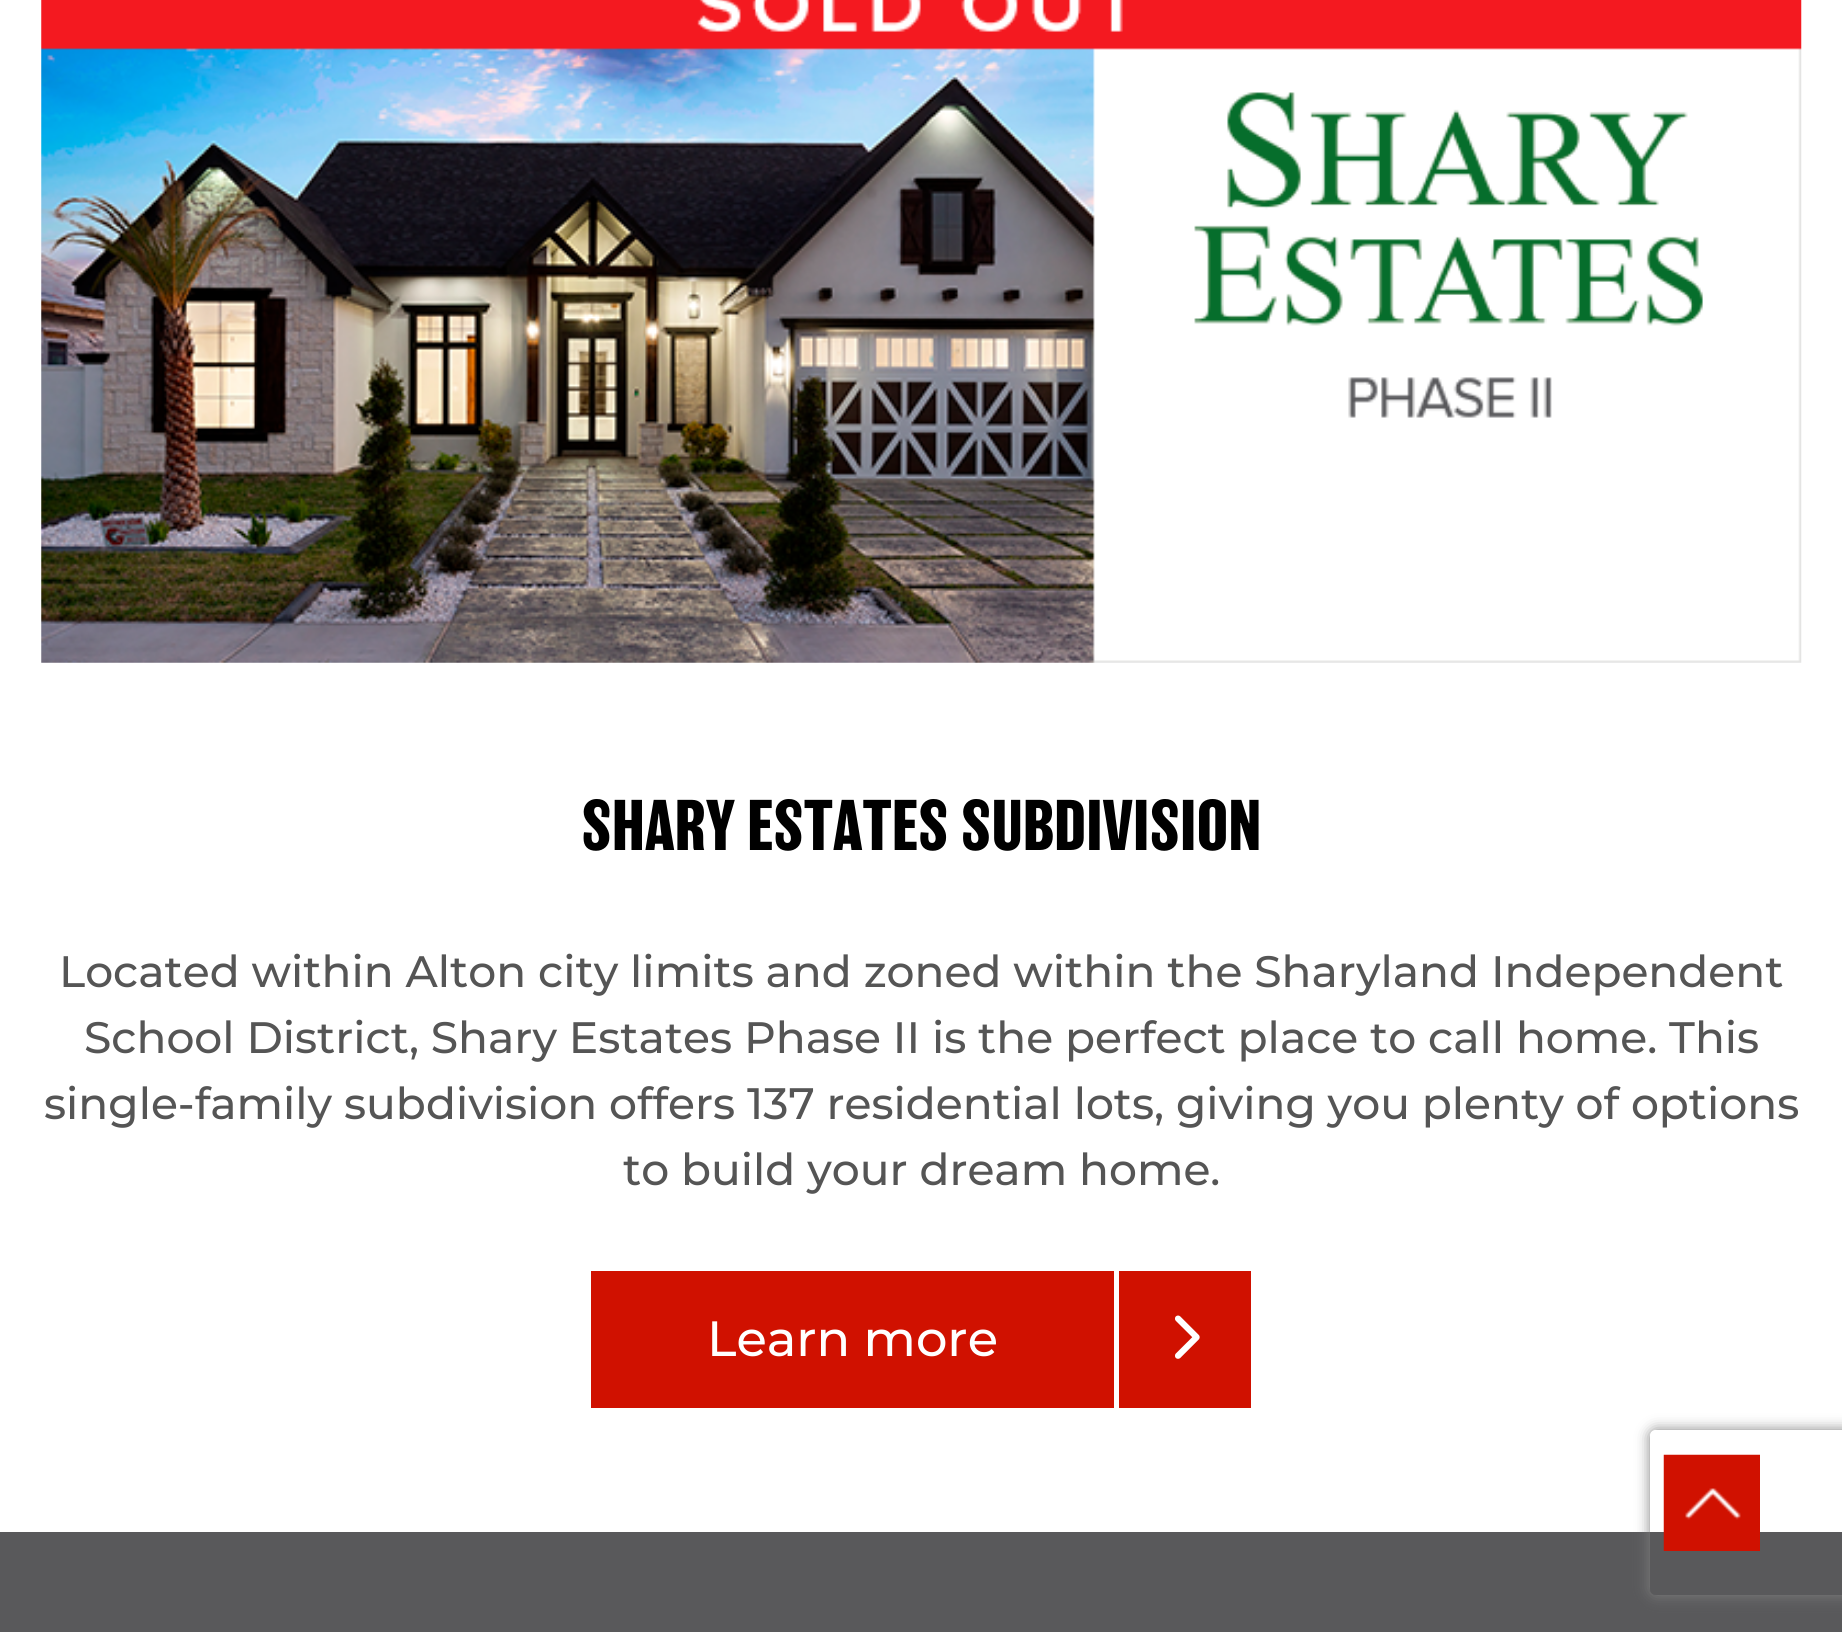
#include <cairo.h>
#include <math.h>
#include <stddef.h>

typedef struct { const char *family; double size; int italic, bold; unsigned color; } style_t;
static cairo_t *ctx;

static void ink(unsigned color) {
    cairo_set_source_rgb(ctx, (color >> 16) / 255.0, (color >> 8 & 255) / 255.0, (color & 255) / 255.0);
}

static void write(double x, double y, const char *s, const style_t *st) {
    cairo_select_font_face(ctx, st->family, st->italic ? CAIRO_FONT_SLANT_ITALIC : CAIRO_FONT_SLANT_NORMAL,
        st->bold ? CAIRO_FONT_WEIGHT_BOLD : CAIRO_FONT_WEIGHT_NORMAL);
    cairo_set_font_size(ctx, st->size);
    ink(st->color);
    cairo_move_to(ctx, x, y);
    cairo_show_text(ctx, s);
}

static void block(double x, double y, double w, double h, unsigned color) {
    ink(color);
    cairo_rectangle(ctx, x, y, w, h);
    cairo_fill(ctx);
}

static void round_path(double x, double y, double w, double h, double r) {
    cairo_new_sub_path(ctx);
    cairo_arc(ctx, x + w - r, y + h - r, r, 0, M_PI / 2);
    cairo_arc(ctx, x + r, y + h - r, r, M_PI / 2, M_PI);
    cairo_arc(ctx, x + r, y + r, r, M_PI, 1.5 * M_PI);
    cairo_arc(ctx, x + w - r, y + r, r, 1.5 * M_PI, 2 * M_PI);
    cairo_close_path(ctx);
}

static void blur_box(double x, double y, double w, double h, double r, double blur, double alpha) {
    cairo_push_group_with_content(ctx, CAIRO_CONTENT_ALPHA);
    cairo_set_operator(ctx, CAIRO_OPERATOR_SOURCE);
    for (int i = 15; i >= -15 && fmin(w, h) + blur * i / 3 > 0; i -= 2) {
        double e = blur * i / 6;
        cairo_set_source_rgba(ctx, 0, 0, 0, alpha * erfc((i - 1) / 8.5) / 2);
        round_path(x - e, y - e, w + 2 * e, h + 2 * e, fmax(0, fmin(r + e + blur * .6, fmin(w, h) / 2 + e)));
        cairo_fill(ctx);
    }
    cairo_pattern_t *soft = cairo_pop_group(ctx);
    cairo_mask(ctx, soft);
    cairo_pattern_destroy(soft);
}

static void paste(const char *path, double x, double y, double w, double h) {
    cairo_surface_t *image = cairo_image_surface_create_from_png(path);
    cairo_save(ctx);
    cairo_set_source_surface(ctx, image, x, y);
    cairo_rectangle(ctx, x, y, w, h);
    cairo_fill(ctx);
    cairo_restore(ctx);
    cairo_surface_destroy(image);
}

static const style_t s1 = {"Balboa", 66, 0, 1, 0x000000};
static const style_t s2 = {"Montserrat Medium", 44, 0, 0, 0x555555};
static const style_t s3 = {"Montserrat Medium", 49.5, 0, 0, 0xffffff};

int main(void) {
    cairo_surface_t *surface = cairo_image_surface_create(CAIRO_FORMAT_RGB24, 1842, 1632);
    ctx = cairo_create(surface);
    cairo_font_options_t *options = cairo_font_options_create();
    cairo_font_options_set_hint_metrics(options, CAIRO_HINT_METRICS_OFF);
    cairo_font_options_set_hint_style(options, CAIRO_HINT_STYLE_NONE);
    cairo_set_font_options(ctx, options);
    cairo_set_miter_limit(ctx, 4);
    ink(0xffffff);
    cairo_paint(ctx);
    paste("pic1.png", 41, 0, 1761, 663);
    write(581, 850, "SHARY ESTATES SUBDIVISION", &s1);
    write(59, 987, "Located within Alton city limits and zoned within the Sharyland Independent", &s2);
    write(84, 1053, "School District, Shary Estates Phase II is the perfect place to call home. This", &s2);
    write(44, 1119, "single-family subdivision offers 137 residential lots, giving you plenty of options", &s2);
    write(623, 1185, "to build your dream home.", &s2);
    block(591, 1271, 523, 137, 0xd01100);
    write(707, 1356, "Learn more", &s3);
    block(1119, 1271, 132, 137, 0xd01100);
    paste("pic2.png", 1175, 1315, 25, 44);
    block(0, 1532, 1842, 100, 0x59595b);
    cairo_save(ctx);
    cairo_set_fill_rule(ctx, CAIRO_FILL_RULE_EVEN_ODD);
    cairo_new_path(ctx);
    cairo_move_to(ctx, 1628, 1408);
    cairo_line_to(ctx, 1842, 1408);
    cairo_line_to(ctx, 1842, 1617);
    cairo_line_to(ctx, 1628, 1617);
    cairo_close_path(ctx);
    cairo_move_to(ctx, 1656, 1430);
    cairo_line_to(ctx, 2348, 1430);
    cairo_curve_to(ctx, 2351.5, 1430, 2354, 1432.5, 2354, 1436);
    cairo_line_to(ctx, 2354, 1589);
    cairo_curve_to(ctx, 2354, 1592.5, 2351.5, 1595, 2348, 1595);
    cairo_line_to(ctx, 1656, 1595);
    cairo_curve_to(ctx, 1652.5, 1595, 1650, 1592.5, 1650, 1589);
    cairo_line_to(ctx, 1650, 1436);
    cairo_curve_to(ctx, 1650, 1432.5, 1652.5, 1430, 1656, 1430);
    cairo_close_path(ctx);
    cairo_clip(ctx);
    ink(0x808080);
    blur_box(1650, 1430, 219, 165, 6, 7, 1);
    cairo_restore(ctx);
    paste("pic3.png", 1663, 1454, 97, 97);
    cairo_surface_write_to_png(surface, "screenshot.png");
    cairo_font_options_destroy(options);
    cairo_destroy(ctx);
    cairo_surface_destroy(surface);
    return 0;
}
